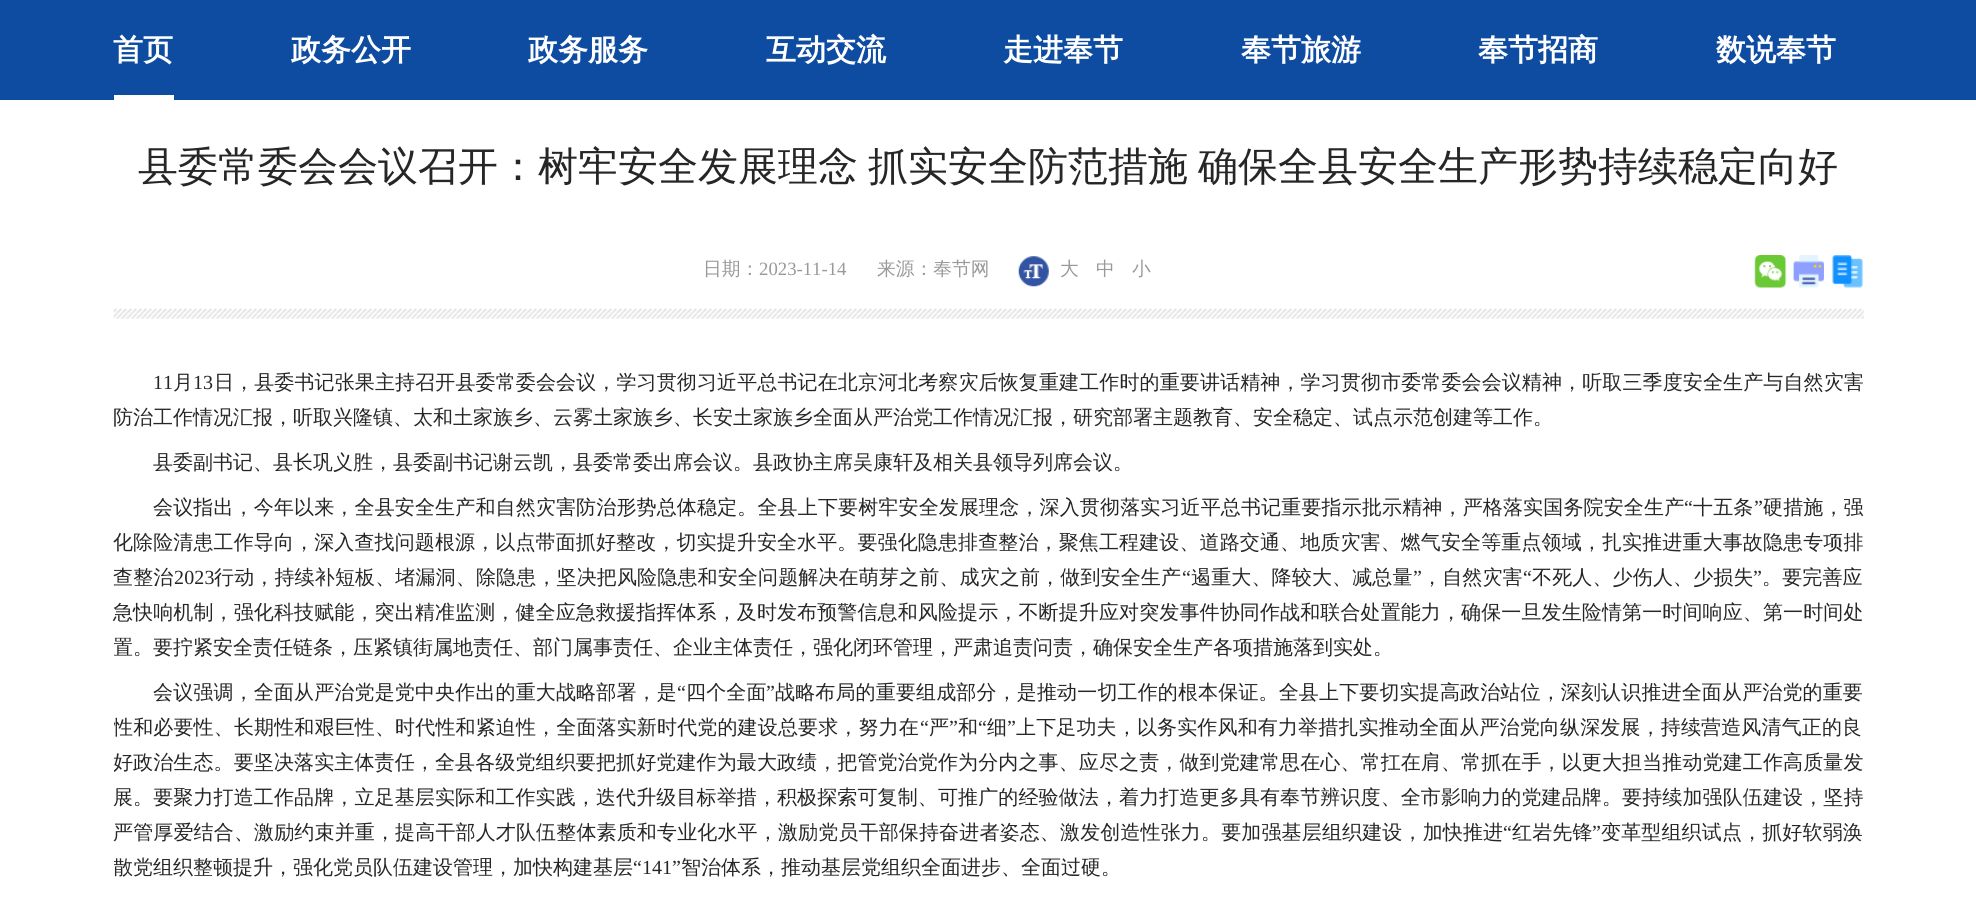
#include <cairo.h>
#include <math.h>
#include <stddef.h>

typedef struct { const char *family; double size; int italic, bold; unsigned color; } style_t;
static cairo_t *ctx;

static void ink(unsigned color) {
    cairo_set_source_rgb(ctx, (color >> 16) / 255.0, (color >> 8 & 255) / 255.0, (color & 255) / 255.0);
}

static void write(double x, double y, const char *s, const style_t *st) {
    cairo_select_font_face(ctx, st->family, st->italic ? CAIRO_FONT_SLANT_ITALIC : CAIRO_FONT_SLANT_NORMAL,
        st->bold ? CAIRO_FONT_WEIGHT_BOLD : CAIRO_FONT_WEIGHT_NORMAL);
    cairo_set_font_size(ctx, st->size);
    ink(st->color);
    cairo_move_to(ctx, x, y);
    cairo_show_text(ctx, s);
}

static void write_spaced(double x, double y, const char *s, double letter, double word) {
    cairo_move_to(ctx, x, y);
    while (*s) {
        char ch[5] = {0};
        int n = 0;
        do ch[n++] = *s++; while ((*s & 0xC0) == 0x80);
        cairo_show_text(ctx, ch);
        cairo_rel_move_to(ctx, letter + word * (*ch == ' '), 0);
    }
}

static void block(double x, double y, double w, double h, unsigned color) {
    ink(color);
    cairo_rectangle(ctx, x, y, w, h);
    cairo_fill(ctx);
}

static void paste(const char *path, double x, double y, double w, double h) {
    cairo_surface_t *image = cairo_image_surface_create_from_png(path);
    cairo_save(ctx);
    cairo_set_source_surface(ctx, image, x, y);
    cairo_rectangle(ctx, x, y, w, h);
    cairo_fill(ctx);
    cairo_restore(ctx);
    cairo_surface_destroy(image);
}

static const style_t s1 = {"WenQuanYi Zen Hei", 30, 0, 1, 0xffffff};
static const style_t s2 = {"WenQuanYi Zen Hei Medium", 18.75, 0, 0, 0x999999};
static const style_t s3 = {"Liberation Serif", 18.75, 0, 0, 0x999999};
static const style_t s4 = {"WenQuanYi Zen Hei Medium", 20, 0, 0, 0x262626};
static const style_t s5 = {"Liberation Serif", 20, 0, 0, 0x262626};

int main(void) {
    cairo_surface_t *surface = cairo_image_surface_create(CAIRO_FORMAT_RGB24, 1976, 908);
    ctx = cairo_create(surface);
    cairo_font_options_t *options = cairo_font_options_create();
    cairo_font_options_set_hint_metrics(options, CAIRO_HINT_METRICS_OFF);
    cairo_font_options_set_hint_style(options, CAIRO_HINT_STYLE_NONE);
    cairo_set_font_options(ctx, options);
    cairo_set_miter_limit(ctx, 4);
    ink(0xffffff);
    cairo_paint(ctx);
    block(0, 0, 1976, 100, 0x0e4ca2);
    block(114, 95, 60, 5, 0xffffff);
    write(113, 60, "首页", &s1);
    write(291, 60, "政务公开", &s1);
    write(528, 60, "政务服务", &s1);
    write(766, 60, "互动交流", &s1);
    write(1003, 60, "走进奉节", &s1);
    write(1241, 60, "奉节旅游", &s1);
    write(1478, 60, "奉节招商", &s1);
    write(1716, 60, "数说奉节", &s1);
    cairo_select_font_face(ctx, "WenQuanYi Zen Hei Medium", CAIRO_FONT_SLANT_NORMAL, CAIRO_FONT_WEIGHT_NORMAL);
    cairo_set_font_size(ctx, 40);
    ink(0x262626);
    write_spaced(138, 180, "县委常委会会议召开：树牢安全发展理念 抓实安全防范措施 确保全县安全生产形势持续稳定向好", 0, -2);
    paste("pic1.png", 113, 308, 1751, 11);
    write(703, 275, "日期：", &s2);
    write(759, 275, "2023-11-14", &s3);
    write(877, 275, "来源：奉节网", &s2);
    paste("pic2.png", 1018, 256, 31, 31);
    write(1060, 275, "大", &s2);
    write(1096, 275, "中", &s2);
    write(1132, 275, "小", &s2);
    paste("pic3.png", 1754, 255, 33, 33);
    paste("pic4.png", 1793, 255, 31, 33);
    paste("pic5.png", 1832, 255, 31, 33);
    cairo_select_font_face(ctx, "Liberation Serif", CAIRO_FONT_SLANT_NORMAL, CAIRO_FONT_WEIGHT_NORMAL);
    cairo_set_font_size(ctx, 20);
    ink(0x262626);
    write_spaced(153, 389, "11", 0.12, 0);
    cairo_select_font_face(ctx, "WenQuanYi Zen Hei Medium", CAIRO_FONT_SLANT_NORMAL, CAIRO_FONT_WEIGHT_NORMAL);
    write_spaced(173, 389, "月", 0.12, 0);
    cairo_select_font_face(ctx, "Liberation Serif", CAIRO_FONT_SLANT_NORMAL, CAIRO_FONT_WEIGHT_NORMAL);
    write_spaced(193, 389, "13", 0.12, 0);
    cairo_select_font_face(ctx, "WenQuanYi Zen Hei Medium", CAIRO_FONT_SLANT_NORMAL, CAIRO_FONT_WEIGHT_NORMAL);
    write_spaced(214, 389, "日，县委书记张果主持召开县委常委会会议，学习贯彻习近平总书记在北京河北考察灾后恢复重建工作时的重要讲话精神，学习贯彻市委常委会会议精神，听取三季度安全生产与自然灾害", 0.12, 0);
    write(113, 424, "防治工作情况汇报，听取兴隆镇、太和土家族乡、云雾土家族乡、长安土家族乡全面从严治党工作情况汇报，研究部署主题教育、安全稳定、试点示范创建等工作。", &s4);
    write(153, 469, "县委副书记、县长巩义胜，县委副书记谢云凯，县委常委出席会议。县政协主席吴康轩及相关县领导列席会议。", &s4);
    write_spaced(153, 514, "会议指出，今年以来，全县安全生产和自然灾害防治形势总体稳定。全县上下要树牢安全发展理念，深入贯彻落实习近平总书记重要指示批示精神，严格落实国务院安全生产", 0.15, 0);
    cairo_select_font_face(ctx, "Liberation Serif", CAIRO_FONT_SLANT_NORMAL, CAIRO_FONT_WEIGHT_NORMAL);
    write_spaced(1684, 514, "“", 0.15, 0);
    cairo_select_font_face(ctx, "WenQuanYi Zen Hei Medium", CAIRO_FONT_SLANT_NORMAL, CAIRO_FONT_WEIGHT_NORMAL);
    write_spaced(1693, 514, "十五条", 0.15, 0);
    cairo_select_font_face(ctx, "Liberation Serif", CAIRO_FONT_SLANT_NORMAL, CAIRO_FONT_WEIGHT_NORMAL);
    write_spaced(1754, 514, "”", 0.15, 0);
    cairo_select_font_face(ctx, "WenQuanYi Zen Hei Medium", CAIRO_FONT_SLANT_NORMAL, CAIRO_FONT_WEIGHT_NORMAL);
    write_spaced(1763, 514, "硬措施，强", 0.15, 0);
    write_spaced(113, 549, "化除险清患工作导向，深入查找问题根源，以点带面抓好整改，切实提升安全水平。要强化隐患排查整治，聚焦工程建设、道路交通、地质灾害、燃气安全等重点领域，扎实推进重大事故隐患专项排", 0.12, 0);
    write_spaced(113, 584, "查整治", 0.15, 0);
    cairo_select_font_face(ctx, "Liberation Serif", CAIRO_FONT_SLANT_NORMAL, CAIRO_FONT_WEIGHT_NORMAL);
    write_spaced(174, 584, "2023", 0.15, 0);
    cairo_select_font_face(ctx, "WenQuanYi Zen Hei Medium", CAIRO_FONT_SLANT_NORMAL, CAIRO_FONT_WEIGHT_NORMAL);
    write_spaced(214, 584, "行动，持续补短板、堵漏洞、除隐患，坚决把风险隐患和安全问题解决在萌芽之前、成灾之前，做到安全生产", 0.15, 0);
    cairo_select_font_face(ctx, "Liberation Serif", CAIRO_FONT_SLANT_NORMAL, CAIRO_FONT_WEIGHT_NORMAL);
    write_spaced(1182, 584, "“", 0.15, 0);
    cairo_select_font_face(ctx, "WenQuanYi Zen Hei Medium", CAIRO_FONT_SLANT_NORMAL, CAIRO_FONT_WEIGHT_NORMAL);
    write_spaced(1191, 584, "遏重大、降较大、减总量", 0.15, 0);
    cairo_select_font_face(ctx, "Liberation Serif", CAIRO_FONT_SLANT_NORMAL, CAIRO_FONT_WEIGHT_NORMAL);
    write_spaced(1413, 584, "”", 0.15, 0);
    cairo_select_font_face(ctx, "WenQuanYi Zen Hei Medium", CAIRO_FONT_SLANT_NORMAL, CAIRO_FONT_WEIGHT_NORMAL);
    write_spaced(1422, 584, "，自然灾害", 0.15, 0);
    cairo_select_font_face(ctx, "Liberation Serif", CAIRO_FONT_SLANT_NORMAL, CAIRO_FONT_WEIGHT_NORMAL);
    write_spaced(1523, 584, "“", 0.15, 0);
    cairo_select_font_face(ctx, "WenQuanYi Zen Hei Medium", CAIRO_FONT_SLANT_NORMAL, CAIRO_FONT_WEIGHT_NORMAL);
    write_spaced(1532, 584, "不死人、少伤人、少损失", 0.15, 0);
    cairo_select_font_face(ctx, "Liberation Serif", CAIRO_FONT_SLANT_NORMAL, CAIRO_FONT_WEIGHT_NORMAL);
    write_spaced(1753, 584, "”", 0.15, 0);
    cairo_select_font_face(ctx, "WenQuanYi Zen Hei Medium", CAIRO_FONT_SLANT_NORMAL, CAIRO_FONT_WEIGHT_NORMAL);
    write_spaced(1762, 584, "。要完善应", 0.15, 0);
    write_spaced(113, 619, "急快响机制，强化科技赋能，突出精准监测，健全应急救援指挥体系，及时发布预警信息和风险提示，不断提升应对突发事件协同作战和联合处置能力，确保一旦发生险情第一时间响应、第一时间处", 0.12, 0);
    cairo_save(ctx);
    cairo_rectangle(ctx, 114, 356, 1750, 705);
    cairo_clip(ctx);
    write(113, 654, "置。要拧紧安全责任链条，压紧镇街属地责任、部门属事责任、企业主体责任，强化闭环管理，严肃追责问责，确保安全生产各项措施落到实处。", &s4);
    cairo_restore(ctx);
    write_spaced(153, 699, "会议强调，全面从严治党是党中央作出的重大战略部署，是", 0.15, 0);
    cairo_select_font_face(ctx, "Liberation Serif", CAIRO_FONT_SLANT_NORMAL, CAIRO_FONT_WEIGHT_NORMAL);
    write_spaced(677, 699, "“", 0.15, 0);
    cairo_select_font_face(ctx, "WenQuanYi Zen Hei Medium", CAIRO_FONT_SLANT_NORMAL, CAIRO_FONT_WEIGHT_NORMAL);
    write_spaced(686, 699, "四个全面", 0.15, 0);
    cairo_select_font_face(ctx, "Liberation Serif", CAIRO_FONT_SLANT_NORMAL, CAIRO_FONT_WEIGHT_NORMAL);
    write_spaced(766, 699, "”", 0.15, 0);
    cairo_select_font_face(ctx, "WenQuanYi Zen Hei Medium", CAIRO_FONT_SLANT_NORMAL, CAIRO_FONT_WEIGHT_NORMAL);
    write_spaced(775, 699, "战略布局的重要组成部分，是推动一切工作的根本保证。全县上下要切实提高政治站位，深刻认识推进全面从严治党的重要", 0.15, 0);
    cairo_save(ctx);
    cairo_rectangle(ctx, 114, 356, 1750, 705);
    cairo_clip(ctx);
    write_spaced(113, 734, "性和必要性、长期性和艰巨性、时代性和紧迫性，全面落实新时代党的建设总要求，努力在", 0.15, 0);
    cairo_restore(ctx);
    cairo_select_font_face(ctx, "Liberation Serif", CAIRO_FONT_SLANT_NORMAL, CAIRO_FONT_WEIGHT_NORMAL);
    write_spaced(920, 734, "“", 0.15, 0);
    cairo_select_font_face(ctx, "WenQuanYi Zen Hei Medium", CAIRO_FONT_SLANT_NORMAL, CAIRO_FONT_WEIGHT_NORMAL);
    write_spaced(929, 734, "严", 0.15, 0);
    cairo_select_font_face(ctx, "Liberation Serif", CAIRO_FONT_SLANT_NORMAL, CAIRO_FONT_WEIGHT_NORMAL);
    write_spaced(949, 734, "”", 0.15, 0);
    cairo_select_font_face(ctx, "WenQuanYi Zen Hei Medium", CAIRO_FONT_SLANT_NORMAL, CAIRO_FONT_WEIGHT_NORMAL);
    write_spaced(958, 734, "和", 0.15, 0);
    cairo_select_font_face(ctx, "Liberation Serif", CAIRO_FONT_SLANT_NORMAL, CAIRO_FONT_WEIGHT_NORMAL);
    write_spaced(978, 734, "“", 0.15, 0);
    cairo_select_font_face(ctx, "WenQuanYi Zen Hei Medium", CAIRO_FONT_SLANT_NORMAL, CAIRO_FONT_WEIGHT_NORMAL);
    write_spaced(987, 734, "细", 0.15, 0);
    cairo_select_font_face(ctx, "Liberation Serif", CAIRO_FONT_SLANT_NORMAL, CAIRO_FONT_WEIGHT_NORMAL);
    write_spaced(1007, 734, "”", 0.15, 0);
    cairo_select_font_face(ctx, "WenQuanYi Zen Hei Medium", CAIRO_FONT_SLANT_NORMAL, CAIRO_FONT_WEIGHT_NORMAL);
    write_spaced(1016, 734, "上下足功夫，以务实作风和有力举措扎实推动全面从严治党向纵深发展，持续营造风清气正的良", 0.15, 0);
    cairo_save(ctx);
    cairo_rectangle(ctx, 114, 356, 1750, 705);
    cairo_clip(ctx);
    write_spaced(113, 769, "好政治生态。要坚决落实主体责任，全县各级党组织要把抓好党建作为最大政绩，把管党治党作为分内之事、应尽之责，做到党建常思在心、常扛在肩、常抓在手，以更大担当推动党建工作高质量发", 0.12, 0);
    cairo_restore(ctx);
    write_spaced(113, 804, "展。要聚力打造工作品牌，立足基层实际和工作实践，迭代升级目标举措，积极探索可复制、可推广的经验做法，着力打造更多具有奉节辨识度、全市影响力的党建品牌。要持续加强队伍建设，坚持", 0.12, 0);
    write_spaced(113, 839, "严管厚爱结合、激励约束并重，提高干部人才队伍整体素质和专业化水平，激励党员干部保持奋进者姿态、激发创造性张力。要加强基层组织建设，加快推进", 0.15, 0);
    cairo_select_font_face(ctx, "Liberation Serif", CAIRO_FONT_SLANT_NORMAL, CAIRO_FONT_WEIGHT_NORMAL);
    write_spaced(1503, 839, "“", 0.15, 0);
    cairo_select_font_face(ctx, "WenQuanYi Zen Hei Medium", CAIRO_FONT_SLANT_NORMAL, CAIRO_FONT_WEIGHT_NORMAL);
    write_spaced(1512, 839, "红岩先锋", 0.15, 0);
    cairo_select_font_face(ctx, "Liberation Serif", CAIRO_FONT_SLANT_NORMAL, CAIRO_FONT_WEIGHT_NORMAL);
    write_spaced(1592, 839, "”", 0.15, 0);
    cairo_select_font_face(ctx, "WenQuanYi Zen Hei Medium", CAIRO_FONT_SLANT_NORMAL, CAIRO_FONT_WEIGHT_NORMAL);
    write_spaced(1601, 839, "变革型组织试点，抓好软弱涣", 0.15, 0);
    cairo_save(ctx);
    cairo_rectangle(ctx, 114, 356, 1750, 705);
    cairo_clip(ctx);
    write(113, 874, "散党组织整顿提升，强化党员队伍建设管理，加快构建基层", &s4);
    cairo_restore(ctx);
    write(633, 874, "“141”", &s5);
    write(681, 874, "智治体系，推动基层党组织全面进步、全面过硬。", &s4);
    cairo_surface_write_to_png(surface, "screenshot.png");
    cairo_font_options_destroy(options);
    cairo_destroy(ctx);
    cairo_surface_destroy(surface);
    return 0;
}
